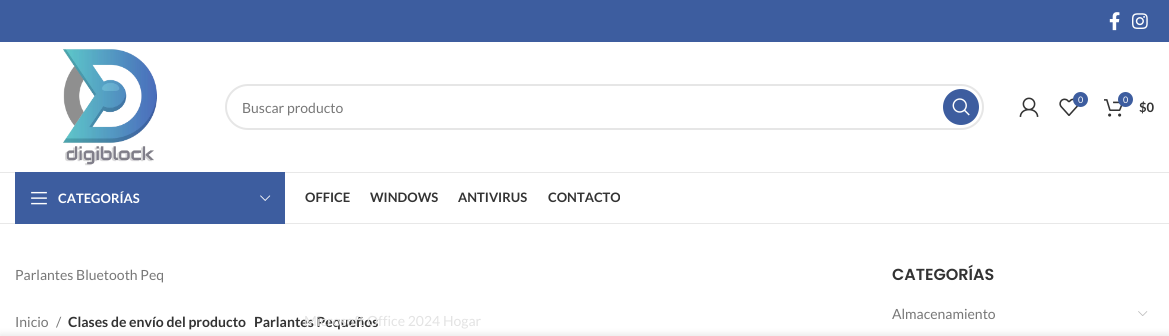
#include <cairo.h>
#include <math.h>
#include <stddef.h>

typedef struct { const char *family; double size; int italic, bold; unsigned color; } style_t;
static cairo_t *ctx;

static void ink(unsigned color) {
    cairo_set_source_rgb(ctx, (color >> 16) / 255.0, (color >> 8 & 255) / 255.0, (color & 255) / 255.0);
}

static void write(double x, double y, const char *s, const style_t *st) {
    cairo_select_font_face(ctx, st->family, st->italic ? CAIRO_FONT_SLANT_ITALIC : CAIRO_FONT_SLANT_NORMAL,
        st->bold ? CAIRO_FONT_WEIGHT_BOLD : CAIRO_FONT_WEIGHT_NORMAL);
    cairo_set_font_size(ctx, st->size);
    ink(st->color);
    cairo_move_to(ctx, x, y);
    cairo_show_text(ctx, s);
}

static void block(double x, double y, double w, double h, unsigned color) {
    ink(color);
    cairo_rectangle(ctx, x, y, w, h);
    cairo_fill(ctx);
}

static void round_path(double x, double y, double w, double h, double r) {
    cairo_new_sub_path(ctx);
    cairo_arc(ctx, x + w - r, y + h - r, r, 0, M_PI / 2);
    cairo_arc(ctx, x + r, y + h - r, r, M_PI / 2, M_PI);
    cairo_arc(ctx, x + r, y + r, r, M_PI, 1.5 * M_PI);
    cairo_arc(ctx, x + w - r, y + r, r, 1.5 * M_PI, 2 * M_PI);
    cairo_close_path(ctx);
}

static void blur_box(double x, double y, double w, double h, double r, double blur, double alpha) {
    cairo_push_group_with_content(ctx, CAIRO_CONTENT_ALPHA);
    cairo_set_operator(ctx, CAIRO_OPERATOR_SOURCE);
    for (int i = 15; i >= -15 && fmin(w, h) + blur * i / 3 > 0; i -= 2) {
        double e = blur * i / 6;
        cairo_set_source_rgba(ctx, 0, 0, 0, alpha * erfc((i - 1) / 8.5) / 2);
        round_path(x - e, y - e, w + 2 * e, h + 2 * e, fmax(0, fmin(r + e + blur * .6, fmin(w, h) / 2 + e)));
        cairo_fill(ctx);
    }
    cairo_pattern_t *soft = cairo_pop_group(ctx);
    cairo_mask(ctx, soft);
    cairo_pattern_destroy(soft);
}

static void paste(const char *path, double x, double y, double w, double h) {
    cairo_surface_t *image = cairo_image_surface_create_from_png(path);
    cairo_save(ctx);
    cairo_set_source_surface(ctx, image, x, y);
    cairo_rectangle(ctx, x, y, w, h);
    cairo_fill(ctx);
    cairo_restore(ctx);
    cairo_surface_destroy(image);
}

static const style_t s1 = {"Lato", 14, 0, 0, 0x777777};
static const style_t s2 = {"Lato", 9, 0, 0, 0xffffff};
static const style_t s3 = {"Lato", 13, 0, 1, 0x333333};
static const style_t s4 = {"Lato", 13, 0, 1, 0xffffff};
static const style_t s5 = {"Lato", 14, 0, 1, 0x333333};
static const style_t s6 = {"Lato", 14, 0, 0, 0xe3e3e3};
static const style_t s7 = {"Poppins SemiBold", 16, 0, 0, 0x333333};

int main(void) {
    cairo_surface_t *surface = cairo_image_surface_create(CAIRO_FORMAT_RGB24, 1169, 336);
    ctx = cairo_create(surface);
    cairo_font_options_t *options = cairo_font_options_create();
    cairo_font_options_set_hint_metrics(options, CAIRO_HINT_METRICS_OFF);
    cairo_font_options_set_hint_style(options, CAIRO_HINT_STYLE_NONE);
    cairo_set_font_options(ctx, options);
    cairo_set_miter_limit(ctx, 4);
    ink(0xffffff);
    cairo_paint(ctx);
    block(0, 0, 1169, 42, 0x3d5d9f);
    paste("pic1.png", 1109, 12, 11, 19);
    paste("pic2.png", 1132, 13, 16, 16);
    block(0, 172, 1169, 1, 0xe8e8e8);
    paste("pic3.png", 63, 49, 94, 117);
    round_path(226, 85, 757, 44, 22);
    ink(0xe6e6e6);
    cairo_stroke(ctx);
    write(242, 113, "Buscar producto", &s1);
    ink(0x3d5d9f);
    cairo_new_path(ctx);
    cairo_arc(ctx, 961, 107, 18, 0, 2 * M_PI);
    cairo_fill(ctx);
    paste("pic4.png", 952, 98, 18, 18);
    paste("pic5.png", 1019, 97, 20, 20);
    paste("pic6.png", 1059, 98, 20, 18);
    cairo_arc(ctx, 1080.5, 99.5, 7.5, 0, 2 * M_PI);
    cairo_fill(ctx);
    write(1078, 103, "0", &s2);
    paste("pic7.png", 1104, 99, 19, 18);
    ink(0x3d5d9f);
    cairo_arc(ctx, 1125.5, 99.5, 7.5, 0, 2 * M_PI);
    cairo_fill(ctx);
    write(1123, 103, "0", &s2);
    write(1139, 112, "$0", &s3);
    block(0, 223, 1169, 1, 0xe8e8e8);
    block(15, 172, 270, 52, 0x3d5d9f);
    paste("pic8.png", 31, 191, 16, 14);
    write(58, 203, "CATEGORÍAS", &s4);
    paste("pic9.png", 260, 195, 11, 6);
    write(254, 327, "Parlantes Pequeños", &s5);
    write(304, 326, "Microsoft Office 2024 Hogar", &s6);
    write(305, 202, "OFFICE", &s3);
    write(370, 202, "WINDOWS", &s3);
    write(458, 202, "ANTIVIRUS", &s3);
    write(548, 202, "CONTACTO", &s3);
    write(15, 280, "Parlantes Bluetooth Peq", &s1);
    write(15, 327, "Inicio", &s1);
    write(56, 327, "/", &s1);
    write(68, 327, "Clases de envío del producto", &s5);
    write(892, 280, "CATEGORÍAS", &s7);
    write(892, 319, "Almacenamiento", &s1);
    paste("pic10.png", 1138, 311, 10, 5);
    ink(0x000000);
    blur_box(0, 336, 1169, 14, 0, 4.5, 0.14);
    cairo_surface_write_to_png(surface, "screenshot.png");
    cairo_font_options_destroy(options);
    cairo_destroy(ctx);
    cairo_surface_destroy(surface);
    return 0;
}
